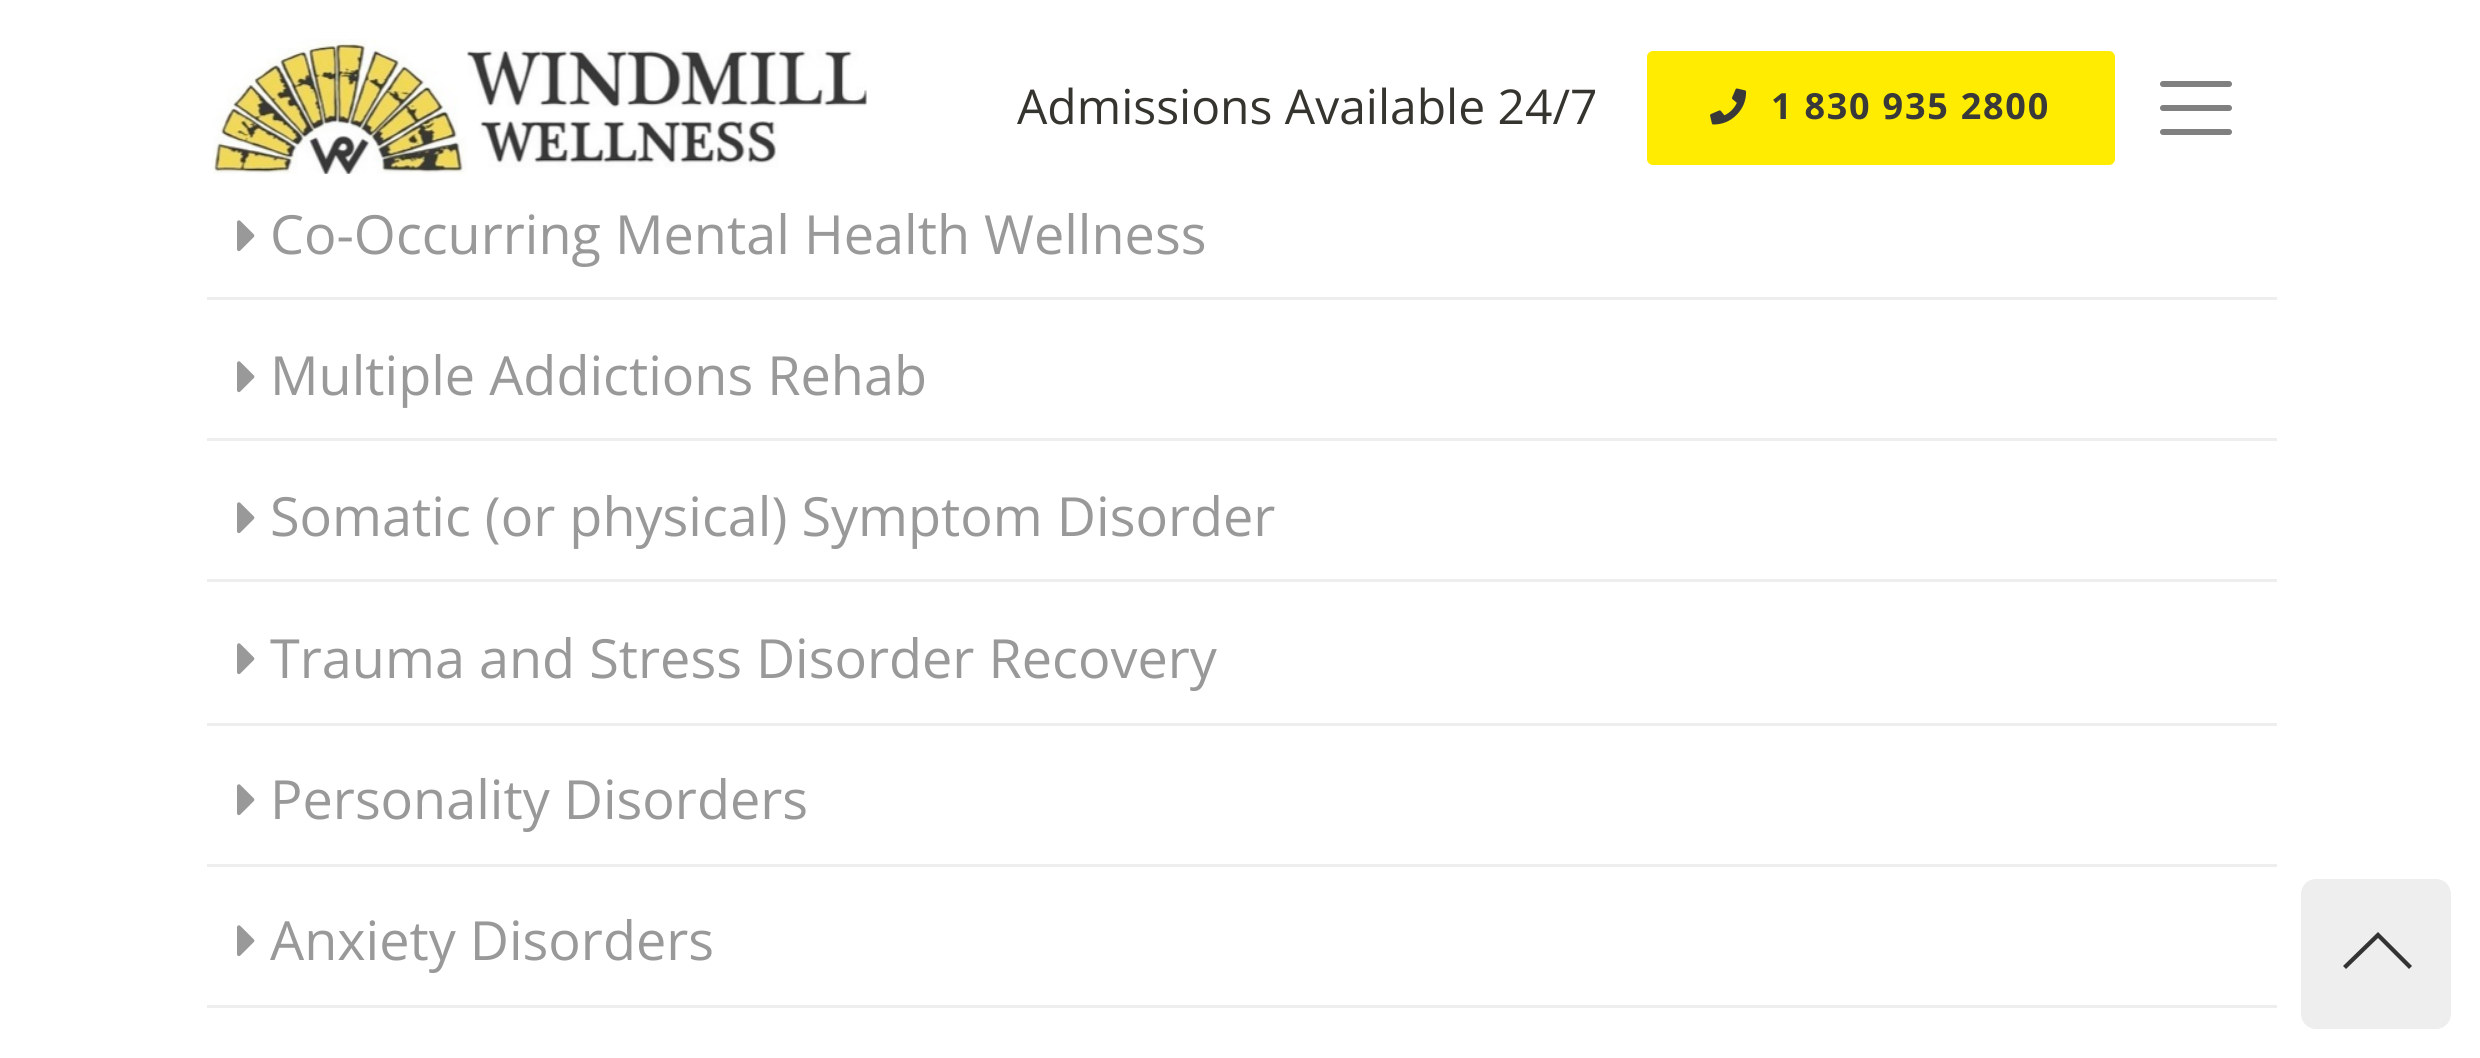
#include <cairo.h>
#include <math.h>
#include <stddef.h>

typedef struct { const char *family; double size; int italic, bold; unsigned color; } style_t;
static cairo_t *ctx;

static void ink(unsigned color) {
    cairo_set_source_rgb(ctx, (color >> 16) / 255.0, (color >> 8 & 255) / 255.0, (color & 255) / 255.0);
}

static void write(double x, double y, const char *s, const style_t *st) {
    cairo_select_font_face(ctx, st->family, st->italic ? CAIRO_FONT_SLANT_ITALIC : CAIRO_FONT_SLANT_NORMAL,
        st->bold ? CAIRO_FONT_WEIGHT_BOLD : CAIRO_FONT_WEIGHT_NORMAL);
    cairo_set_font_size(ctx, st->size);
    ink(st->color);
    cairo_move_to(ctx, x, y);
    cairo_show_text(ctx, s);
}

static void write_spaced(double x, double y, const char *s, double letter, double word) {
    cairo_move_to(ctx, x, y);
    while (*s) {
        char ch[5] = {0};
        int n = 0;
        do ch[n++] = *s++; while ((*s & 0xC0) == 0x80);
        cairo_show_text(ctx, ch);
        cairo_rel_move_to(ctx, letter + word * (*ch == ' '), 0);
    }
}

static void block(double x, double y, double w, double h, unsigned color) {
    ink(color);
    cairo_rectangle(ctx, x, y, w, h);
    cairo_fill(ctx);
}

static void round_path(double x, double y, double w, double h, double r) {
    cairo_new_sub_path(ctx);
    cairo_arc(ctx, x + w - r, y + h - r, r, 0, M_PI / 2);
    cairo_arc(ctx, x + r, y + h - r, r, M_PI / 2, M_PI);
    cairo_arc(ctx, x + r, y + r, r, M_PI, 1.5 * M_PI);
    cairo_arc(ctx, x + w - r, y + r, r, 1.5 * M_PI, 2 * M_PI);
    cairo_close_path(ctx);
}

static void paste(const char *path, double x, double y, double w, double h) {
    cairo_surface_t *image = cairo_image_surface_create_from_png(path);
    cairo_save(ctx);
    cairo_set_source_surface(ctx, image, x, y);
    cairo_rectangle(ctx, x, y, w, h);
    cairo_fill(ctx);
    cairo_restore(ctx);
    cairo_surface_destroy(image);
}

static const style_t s1 = {"Open Sans", 48, 0, 0, 0x35342f};
static const style_t s2 = {"Open Sans", 54, 0, 0, 0x999999};

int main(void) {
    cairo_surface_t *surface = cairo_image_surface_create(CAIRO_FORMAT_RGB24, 2480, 1058);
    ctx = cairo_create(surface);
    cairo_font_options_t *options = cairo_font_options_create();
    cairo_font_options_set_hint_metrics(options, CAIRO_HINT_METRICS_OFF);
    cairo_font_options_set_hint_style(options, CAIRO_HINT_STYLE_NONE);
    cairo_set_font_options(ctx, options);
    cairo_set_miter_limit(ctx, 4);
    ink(0xffffff);
    cairo_paint(ctx);
    paste("pic1.png", 212, 39, 655, 135);
    write(1017, 124, "Admissions Available 24/7", &s1);
    ink(0xffec00);
    round_path(1647, 51, 468, 114, 6);
    cairo_fill(ctx);
    paste("pic2.png", 1710, 88, 37, 37);
    cairo_select_font_face(ctx, "Open Sans", CAIRO_FONT_SLANT_NORMAL, CAIRO_FONT_WEIGHT_BOLD);
    cairo_set_font_size(ctx, 36);
    ink(0x393939);
    write_spaced(1771, 119, "1 830 935 2800", 1.75, 0);
    cairo_new_path(ctx);
    cairo_move_to(ctx, 2163, 84);
    cairo_line_to(ctx, 2229, 84);
    cairo_move_to(ctx, 2163, 108);
    cairo_line_to(ctx, 2229, 108);
    cairo_move_to(ctx, 2163, 132);
    cairo_line_to(ctx, 2229, 132);
    ink(0x808080);
    cairo_set_line_width(ctx, 6);
    cairo_set_line_cap(ctx, CAIRO_LINE_CAP_ROUND);
    cairo_stroke(ctx);
    block(207, 297, 2070, 3, 0xeeeeee);
    paste("pic3.png", 237, 220, 18, 32);
    write(270, 254, "Co-Occurring Mental Health Wellness", &s2);
    block(207, 438, 2070, 3, 0xeeeeee);
    paste("pic3.png", 237, 361, 18, 32);
    write(270, 395, "Multiple Addictions Rehab", &s2);
    block(207, 579, 2070, 3, 0xeeeeee);
    paste("pic3.png", 237, 502, 18, 32);
    write(270, 536, "Somatic (or physical) Symptom Disorder", &s2);
    block(207, 723, 2070, 3, 0xeeeeee);
    paste("pic3.png", 237, 643, 18, 32);
    write(270, 678, "Trauma and Stress Disorder Recovery", &s2);
    block(207, 864, 2070, 3, 0xeeeeee);
    paste("pic3.png", 237, 784, 18, 32);
    write(270, 819, "Personality Disorders", &s2);
    block(207, 1005, 2070, 3, 0xeeeeee);
    paste("pic3.png", 237, 925, 18, 32);
    write(270, 960, "Anxiety Disorders", &s2);
    ink(0xeeeeee);
    round_path(2301, 879, 150, 150, 15);
    cairo_fill(ctx);
    ink(0x333333);
    cairo_new_path(ctx);
    cairo_move_to(ctx, 2412, 966);
    cairo_line_to(ctx, 2409, 969);
    cairo_line_to(ctx, 2378, 938);
    cairo_line_to(ctx, 2346, 969);
    cairo_line_to(ctx, 2343, 966);
    cairo_line_to(ctx, 2378, 932);
    cairo_close_path(ctx);
    cairo_fill(ctx);
    cairo_surface_write_to_png(surface, "screenshot.png");
    cairo_font_options_destroy(options);
    cairo_destroy(ctx);
    cairo_surface_destroy(surface);
    return 0;
}
